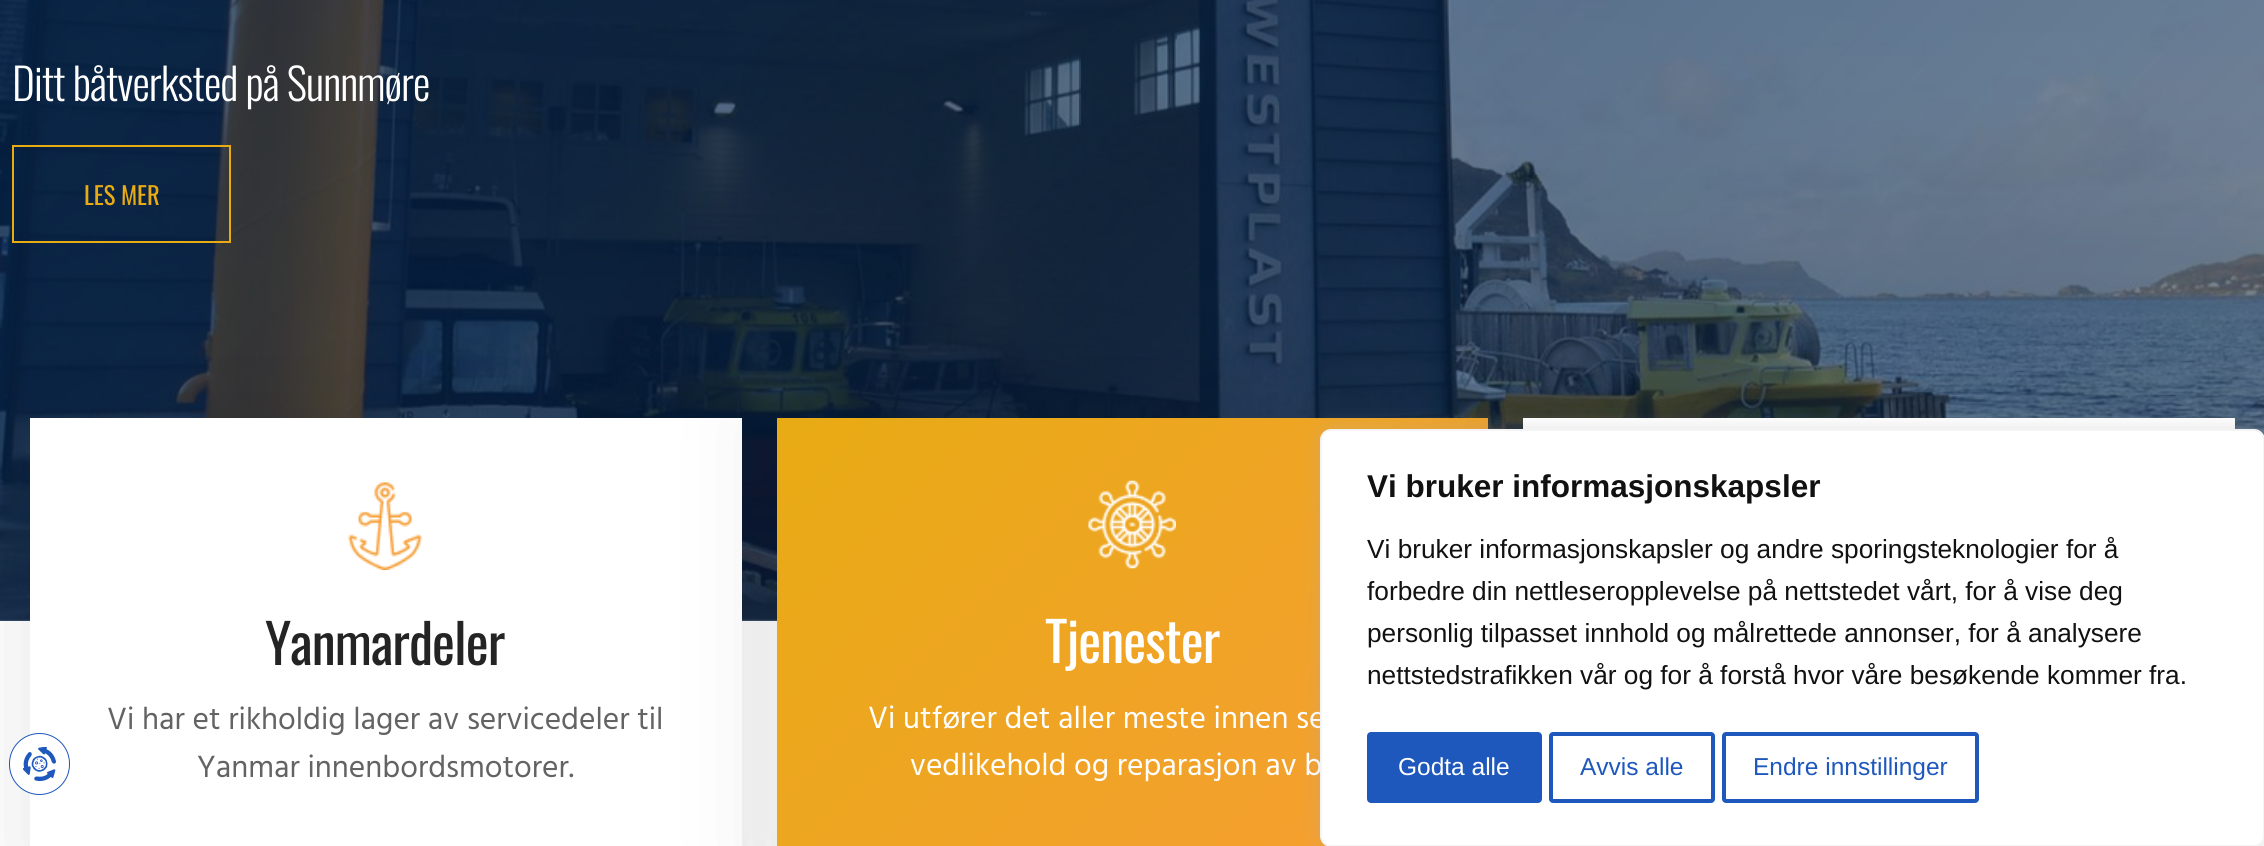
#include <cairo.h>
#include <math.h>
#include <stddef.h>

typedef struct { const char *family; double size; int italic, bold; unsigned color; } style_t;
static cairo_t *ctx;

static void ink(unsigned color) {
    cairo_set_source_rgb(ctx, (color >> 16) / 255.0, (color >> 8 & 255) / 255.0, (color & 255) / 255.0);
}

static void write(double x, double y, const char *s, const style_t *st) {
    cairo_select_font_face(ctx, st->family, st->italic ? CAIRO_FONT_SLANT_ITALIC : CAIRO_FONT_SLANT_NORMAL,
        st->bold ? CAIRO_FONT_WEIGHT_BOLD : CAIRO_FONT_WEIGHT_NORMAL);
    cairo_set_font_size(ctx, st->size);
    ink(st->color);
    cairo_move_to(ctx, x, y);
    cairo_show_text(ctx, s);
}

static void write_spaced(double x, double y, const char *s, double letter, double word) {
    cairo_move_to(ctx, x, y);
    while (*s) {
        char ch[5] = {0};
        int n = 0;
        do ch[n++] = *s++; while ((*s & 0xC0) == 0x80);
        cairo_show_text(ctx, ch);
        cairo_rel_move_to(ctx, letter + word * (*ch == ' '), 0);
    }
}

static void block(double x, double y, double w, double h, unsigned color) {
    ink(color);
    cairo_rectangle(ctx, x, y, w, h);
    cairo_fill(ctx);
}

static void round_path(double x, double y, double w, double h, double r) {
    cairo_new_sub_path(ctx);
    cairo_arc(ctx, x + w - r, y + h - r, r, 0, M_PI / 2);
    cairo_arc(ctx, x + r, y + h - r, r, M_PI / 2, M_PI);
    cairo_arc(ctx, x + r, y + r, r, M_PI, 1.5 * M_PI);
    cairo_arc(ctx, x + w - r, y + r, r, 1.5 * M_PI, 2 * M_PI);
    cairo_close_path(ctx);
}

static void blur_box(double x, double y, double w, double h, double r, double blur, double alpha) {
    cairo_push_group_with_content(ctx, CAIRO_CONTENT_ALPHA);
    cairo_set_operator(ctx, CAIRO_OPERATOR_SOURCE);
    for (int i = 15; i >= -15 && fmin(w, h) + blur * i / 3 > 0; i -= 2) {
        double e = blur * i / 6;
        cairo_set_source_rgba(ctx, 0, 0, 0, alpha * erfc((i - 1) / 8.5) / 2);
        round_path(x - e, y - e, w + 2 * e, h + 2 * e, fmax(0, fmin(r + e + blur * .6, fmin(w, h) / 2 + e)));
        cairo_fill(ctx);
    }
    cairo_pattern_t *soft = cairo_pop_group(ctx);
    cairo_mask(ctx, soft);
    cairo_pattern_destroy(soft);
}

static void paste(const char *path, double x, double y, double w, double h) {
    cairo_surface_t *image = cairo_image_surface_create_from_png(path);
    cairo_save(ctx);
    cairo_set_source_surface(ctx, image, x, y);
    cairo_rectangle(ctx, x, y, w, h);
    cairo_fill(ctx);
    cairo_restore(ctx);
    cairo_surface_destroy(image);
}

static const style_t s1 = {"Oswald", 24.5, 0, 0, 0xe8ab14};
static const style_t s2 = {"Hind Guntur", 31.5, 0, 0, 0x636363};
static const style_t s3 = {"Hind Guntur", 31.5, 0, 0, 0xffffff};
static const style_t s4 = {"Liberation Sans", 31.5, 0, 1, 0x111111};
static const style_t s5 = {"Liberation Sans", 26.25, 0, 0, 0x111111};
static const style_t s6 = {"Liberation Sans", 24.5, 0, 0, 0xffffff};
static const style_t s7 = {"Liberation Sans", 24.5, 0, 0, 0x1e58bc};

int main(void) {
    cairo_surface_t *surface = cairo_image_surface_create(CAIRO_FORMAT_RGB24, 2264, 846);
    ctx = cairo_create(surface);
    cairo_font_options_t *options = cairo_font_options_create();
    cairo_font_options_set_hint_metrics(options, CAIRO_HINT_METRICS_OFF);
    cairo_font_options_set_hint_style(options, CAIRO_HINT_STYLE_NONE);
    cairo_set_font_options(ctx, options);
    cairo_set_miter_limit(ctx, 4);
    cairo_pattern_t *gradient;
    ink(0xffffff);
    cairo_paint(ctx);
    paste("pic1.png", 0, 0, 2264, 621);
    gradient = cairo_pattern_create_linear(275, -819, 1990, 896);
    cairo_pattern_add_color_stop_rgba(gradient, 0, 0.004, 0.137, 0.302, 0.8);
    cairo_pattern_add_color_stop_rgba(gradient, 1, 0.004, 0.137, 0.302, 0.5);
    cairo_set_source(ctx, gradient);
    cairo_pattern_destroy(gradient);
    cairo_rectangle(ctx, 0, 0, 2264, 621);
    cairo_fill(ctx);
    cairo_select_font_face(ctx, "Oswald Light", CAIRO_FONT_SLANT_NORMAL, CAIRO_FONT_WEIGHT_NORMAL);
    cairo_set_font_size(ctx, 43.75);
    ink(0xffffff);
    write_spaced(12, 101, "Ditt båtverksted på Sunnmøre", -0.9, 0);
    cairo_rectangle(ctx, 13, 146, 217, 96);
    ink(0xe8ab14);
    cairo_stroke(ctx);
    write(84, 205, "LES MER", &s1);
    ink(0x000000);
    blur_box(30, 418, 712, 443, 0, 52.5, 0.1);
    block(30, 418, 712, 428, 0xffffff);
    paste("pic2.png", 347, 482, 76, 88);
    cairo_set_font_size(ctx, 54.5);
    ink(0x242424);
    write_spaced(265, 665, "Yanmardeler", -0.9, 0);
    write(107, 729, "Vi har et rikholdig lager av servicedeler til", &s2);
    write(197, 777, "Yanmar innenbordsmotorer.", &s2);
    ink(0x000000);
    blur_box(777, 418, 711, 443, 0, 52.5, 0.1);
    gradient = cairo_pattern_create_linear(844, 351, 1421, 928);
    cairo_pattern_add_color_stop_rgba(gradient, 0, 0.91, 0.671, 0.078, 1);
    cairo_pattern_add_color_stop_rgba(gradient, 1, 0.965, 0.616, 0.204, 1);
    cairo_set_source(ctx, gradient);
    cairo_pattern_destroy(gradient);
    cairo_rectangle(ctx, 777, 418, 711, 428);
    cairo_fill(ctx);
    paste("pic3.png", 1088, 480, 88, 89);
    cairo_select_font_face(ctx, "Oswald", CAIRO_FONT_SLANT_NORMAL, CAIRO_FONT_WEIGHT_NORMAL);
    cairo_set_font_size(ctx, 54.5);
    ink(0xffffff);
    write_spaced(1045, 663, "Tjenester", -0.9, 0);
    write(868, 728, "Vi utfører det aller meste innen se", &s3);
    write(910, 775, "vedlikehold og reparasjon av b", &s3);
    ink(0x000000);
    blur_box(1523, 418, 712, 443, 0, 52.5, 0.1);
    block(1523, 418, 712, 11, 0xffffff);
    ink(0xacabab);
    blur_box(1320, 427, 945, 418, 11, 9, 0.3);
    ink(0xffffff);
    round_path(1321, 430, 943, 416, 10);
    cairo_fill_preserve(ctx);
    ink(0xf4f4f4);
    cairo_stroke(ctx);
    write(1367, 497, "Vi bruker informasjonskapsler", &s4);
    write(1367, 558, "Vi bruker informasjonskapsler og andre sporingsteknologier for å", &s5);
    write(1367, 600, "forbedre din nettleseropplevelse på nettstedet vårt, for å vise deg", &s5);
    write(1367, 642, "personlig tilpasset innhold og målrettede annonser, for å analysere", &s5);
    write(1367, 684, "nettstedstrafikken vår og for å forstå hvor våre besøkende kommer fra.", &s5);
    ink(0x1e58bc);
    round_path(1369, 734, 171, 67, 2);
    cairo_fill_preserve(ctx);
    cairo_set_line_width(ctx, 4);
    cairo_stroke(ctx);
    write(1398, 775, "Godta alle", &s6);
    round_path(1551, 734, 162, 67, 2);
    ink(0x1e58bc);
    cairo_stroke(ctx);
    write(1580, 775, "Avvis alle", &s7);
    round_path(1724, 734, 253, 67, 2);
    cairo_stroke(ctx);
    write(1753, 775, "Endre innstillinger", &s7);
    ink(0xffffff);
    round_path(9.5, 733.5, 60, 61, 30);
    cairo_fill_preserve(ctx);
    ink(0x1e58bc);
    cairo_set_line_width(ctx, 1);
    cairo_stroke(ctx);
    paste("pic4.png", 23, 747, 33, 34);
    cairo_surface_write_to_png(surface, "screenshot.png");
    cairo_font_options_destroy(options);
    cairo_destroy(ctx);
    cairo_surface_destroy(surface);
    return 0;
}
